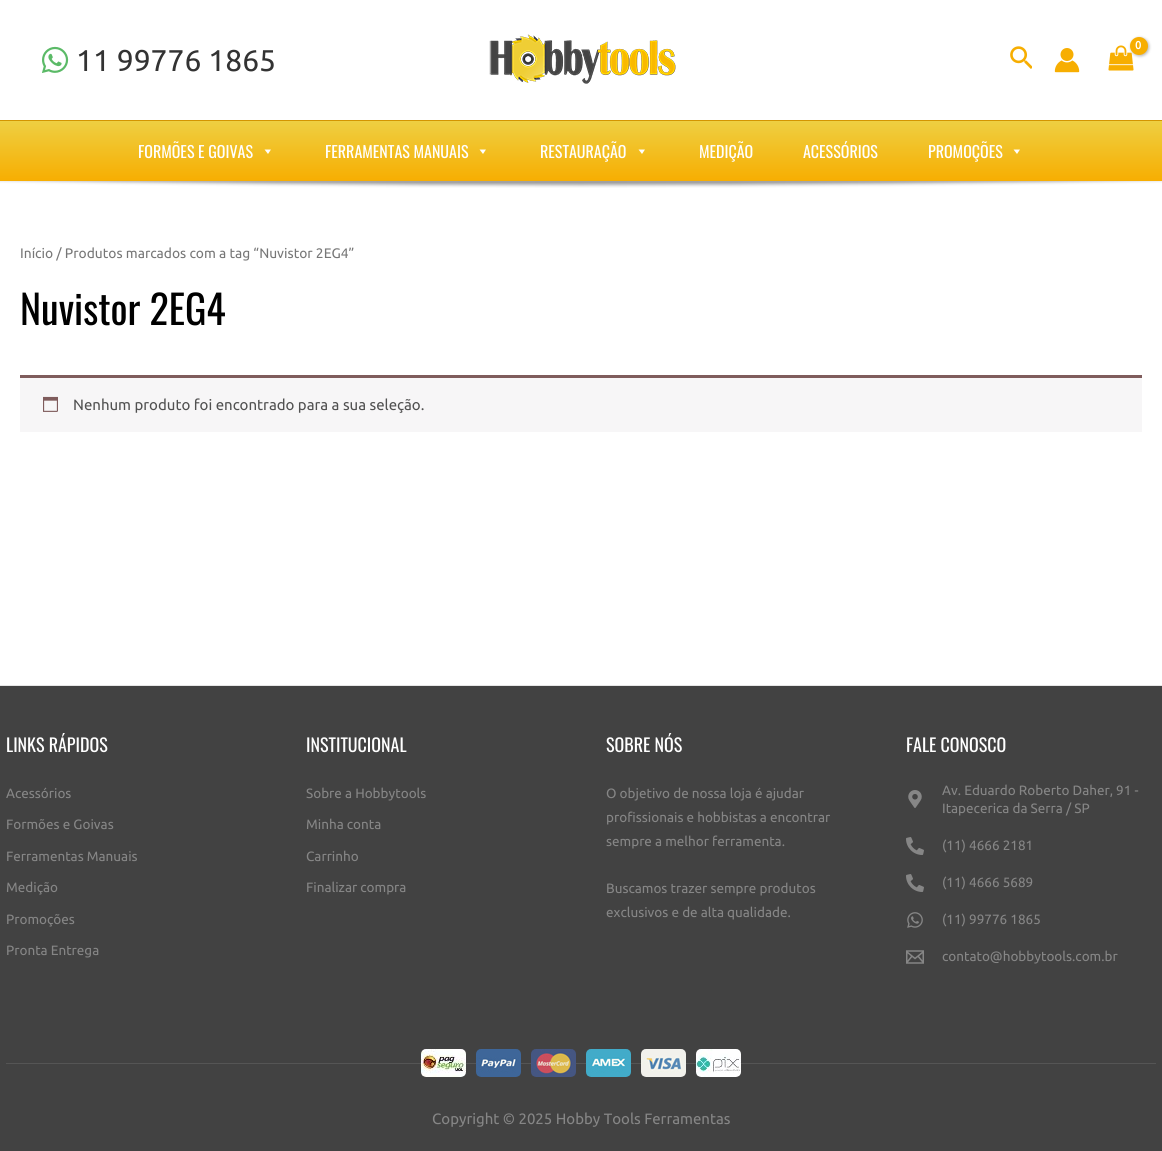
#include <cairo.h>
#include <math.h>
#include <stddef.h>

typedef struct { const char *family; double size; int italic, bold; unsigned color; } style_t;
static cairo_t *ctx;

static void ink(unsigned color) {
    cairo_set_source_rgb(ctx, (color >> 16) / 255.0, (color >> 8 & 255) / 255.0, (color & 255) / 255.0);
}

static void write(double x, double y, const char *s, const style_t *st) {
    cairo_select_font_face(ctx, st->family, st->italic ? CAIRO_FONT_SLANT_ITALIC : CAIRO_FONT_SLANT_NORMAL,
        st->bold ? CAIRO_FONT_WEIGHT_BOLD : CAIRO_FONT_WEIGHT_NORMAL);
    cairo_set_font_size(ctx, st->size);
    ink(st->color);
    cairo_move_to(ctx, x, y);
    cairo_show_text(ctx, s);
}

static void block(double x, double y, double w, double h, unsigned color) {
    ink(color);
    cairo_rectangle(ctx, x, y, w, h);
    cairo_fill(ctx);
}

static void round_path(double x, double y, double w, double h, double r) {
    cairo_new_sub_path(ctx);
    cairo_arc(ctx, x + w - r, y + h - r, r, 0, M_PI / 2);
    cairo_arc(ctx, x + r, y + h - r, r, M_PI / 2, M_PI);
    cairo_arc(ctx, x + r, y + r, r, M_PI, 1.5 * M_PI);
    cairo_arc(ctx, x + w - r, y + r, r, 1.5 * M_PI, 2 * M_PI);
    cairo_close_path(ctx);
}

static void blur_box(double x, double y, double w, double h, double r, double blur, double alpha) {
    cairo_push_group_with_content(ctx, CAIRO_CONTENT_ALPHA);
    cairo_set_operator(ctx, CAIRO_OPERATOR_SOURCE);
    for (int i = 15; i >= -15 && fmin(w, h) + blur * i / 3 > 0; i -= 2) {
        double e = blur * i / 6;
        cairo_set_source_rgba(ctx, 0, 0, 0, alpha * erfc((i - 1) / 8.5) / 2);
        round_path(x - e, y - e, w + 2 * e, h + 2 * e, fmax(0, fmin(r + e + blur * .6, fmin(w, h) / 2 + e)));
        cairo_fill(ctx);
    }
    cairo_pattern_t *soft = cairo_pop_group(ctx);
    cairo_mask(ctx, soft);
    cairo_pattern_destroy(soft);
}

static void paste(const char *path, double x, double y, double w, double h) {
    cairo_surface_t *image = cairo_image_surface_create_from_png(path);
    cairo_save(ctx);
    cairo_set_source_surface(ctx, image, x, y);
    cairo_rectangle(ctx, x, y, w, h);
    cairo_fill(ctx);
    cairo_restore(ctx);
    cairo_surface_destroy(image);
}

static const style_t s1 = {"Ubuntu", 11, 0, 1, 0xffffff};
static const style_t s2 = {"Ubuntu", 30, 0, 0, 0x333333};
static const style_t s3 = {"Oswald", 16, 0, 0, 0xffffff};
static const style_t s4 = {"Ubuntu", 13.8, 0, 0, 0x777777};
static const style_t s5 = {"Oswald", 40, 0, 0, 0x000000};
static const style_t s6 = {"Ubuntu", 15, 0, 0, 0x515151};
static const style_t s7 = {"Oswald", 18, 0, 0, 0xffffff};
static const style_t s8 = {"Ubuntu", 13.5, 0, 0, 0x868686};
static const style_t s9 = {"Ubuntu", 15, 0, 0, 0x868686};

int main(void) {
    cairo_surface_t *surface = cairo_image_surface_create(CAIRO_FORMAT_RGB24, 1162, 1151);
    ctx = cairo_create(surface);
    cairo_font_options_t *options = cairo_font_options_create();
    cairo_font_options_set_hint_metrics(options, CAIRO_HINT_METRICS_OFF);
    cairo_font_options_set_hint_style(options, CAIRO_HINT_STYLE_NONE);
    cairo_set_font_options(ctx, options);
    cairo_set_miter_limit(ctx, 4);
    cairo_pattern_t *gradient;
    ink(0xffffff);
    cairo_paint(ctx);
    block(0, 120, 1162, 1, 0xd39501);
    paste("pic1.png", 489, 34, 187, 50);
    paste("pic2.png", 1010, 46, 22, 23);
    paste("pic3.png", 1054, 48, 26, 25);
    paste("pic4.png", 1108, 45, 26, 26);
    ink(0x000000);
    blur_box(1131, 38, 18, 18, 9, 1.5, 0.3);
    ink(0xf7ae01);
    cairo_arc(ctx, 1139, 46, 9, 0, 2 * M_PI);
    cairo_fill(ctx);
    write(1135, 49, "0", &s1);
    paste("pic5.png", 42, 46, 27, 27);
    write(76, 71, "11 99776 1865", &s2);
    paste("pic6.png", 0, 181, 1162, 7);
    gradient = cairo_pattern_create_linear(581, 181, 581, 121);
    cairo_pattern_add_color_stop_rgba(gradient, 0, 0.969, 0.682, 0.004, 1);
    cairo_pattern_add_color_stop_rgba(gradient, 1, 0.933, 0.812, 0.259, 1);
    cairo_set_source(ctx, gradient);
    cairo_pattern_destroy(gradient);
    cairo_rectangle(ctx, 0, 121, 1162, 60);
    cairo_fill(ctx);
    write(138, 158, "FORMÕES E GOIVAS", &s3);
    cairo_new_path(ctx);
    cairo_move_to(ctx, 271, 149.5);
    cairo_line_to(ctx, 268, 154);
    cairo_line_to(ctx, 264.5, 149.5);
    cairo_close_path(ctx);
    cairo_fill(ctx);
    write(325, 158, "FERRAMENTAS MANUAIS", &s3);
    cairo_new_path(ctx);
    cairo_move_to(ctx, 486, 149.5);
    cairo_line_to(ctx, 483, 154);
    cairo_line_to(ctx, 479.5, 149.5);
    cairo_close_path(ctx);
    cairo_fill(ctx);
    write(540, 158, "RESTAURAÇÃO", &s3);
    cairo_new_path(ctx);
    cairo_move_to(ctx, 645, 149.5);
    cairo_line_to(ctx, 642, 154);
    cairo_line_to(ctx, 638.5, 149.5);
    cairo_close_path(ctx);
    cairo_fill(ctx);
    write(699, 158, "MEDIÇÃO", &s3);
    write(803, 158, "ACESSÓRIOS", &s3);
    write(928, 158, "PROMOÇÕES", &s3);
    cairo_new_path(ctx);
    cairo_move_to(ctx, 1020, 149.5);
    cairo_line_to(ctx, 1017, 154);
    cairo_line_to(ctx, 1013.5, 149.5);
    cairo_close_path(ctx);
    cairo_fill(ctx);
    write(20, 258, "Início / Produtos marcados com a tag “Nuvistor 2EG4”", &s4);
    write(20, 325, "Nuvistor 2EG4", &s5);
    block(20, 378, 1122, 54, 0xf7f6f7);
    block(20, 375, 1122, 3, 0x7f5c5c);
    paste("pic7.png", 43, 396, 15, 16);
    write(73, 410, "Nenhum produto foi encontrado para a sua seleção.", &s6);
    block(0, 686, 1162, 465, 0x424242);
    block(0, 685, 1162, 1, 0xe6e6e6);
    write(6, 752, "LINKS RÁPIDOS", &s7);
    write(6, 798, "Acessórios", &s8);
    write(6, 829, "Formões e Goivas", &s8);
    write(6, 861, "Ferramentas Manuais", &s8);
    write(6, 892, "Medição", &s8);
    write(6, 924, "Promoções", &s8);
    write(6, 955, "Pronta Entrega", &s8);
    write(306, 752, "INSTITUCIONAL", &s7);
    write(306, 798, "Sobre a Hobbytools", &s8);
    write(306, 829, "Minha conta", &s8);
    write(306, 861, "Carrinho", &s8);
    write(306, 892, "Finalizar compra", &s8);
    write(606, 752, "SOBRE NÓS", &s7);
    write(606, 798, "O objetivo de nossa loja é ajudar", &s8);
    write(606, 822, "profissionais e hobbistas a encontrar", &s8);
    write(606, 846, "sempre a melhor ferramenta.", &s8);
    write(606, 893, "Buscamos trazer sempre produtos", &s8);
    write(606, 917, "exclusivos e de alta qualidade.", &s8);
    write(906, 752, "FALE CONOSCO", &s7);
    paste("pic8.png", 908, 790, 14, 18);
    write(942, 795, "Av. Eduardo Roberto Daher, 91 -", &s8);
    write(942, 813, "Itapecerica da Serra / SP", &s8);
    paste("pic9.png", 906, 837, 18, 18);
    write(942, 850, "(11) 4666 2181", &s8);
    paste("pic9.png", 906, 874, 18, 18);
    write(942, 887, "(11) 4666 5689", &s8);
    paste("pic10.png", 907, 912, 16, 16);
    write(942, 924, "(11) 99776 1865", &s8);
    paste("pic11.png", 906, 950, 18, 14);
    write(942, 961, "contato@hobbytools.com.br", &s8);
    block(6, 1063, 1150, 1, 0x555555);
    paste("pic12.png", 421, 1049, 45, 28);
    paste("pic13.png", 476, 1049, 45, 28);
    paste("pic14.png", 531, 1049, 45, 28);
    paste("pic15.png", 586, 1049, 45, 28);
    paste("pic16.png", 641, 1049, 45, 28);
    paste("pic17.png", 696, 1049, 45, 28);
    write(432, 1124, "Copyright © 2025 Hobby Tools Ferramentas", &s9);
    cairo_surface_write_to_png(surface, "screenshot.png");
    cairo_font_options_destroy(options);
    cairo_destroy(ctx);
    cairo_surface_destroy(surface);
    return 0;
}
